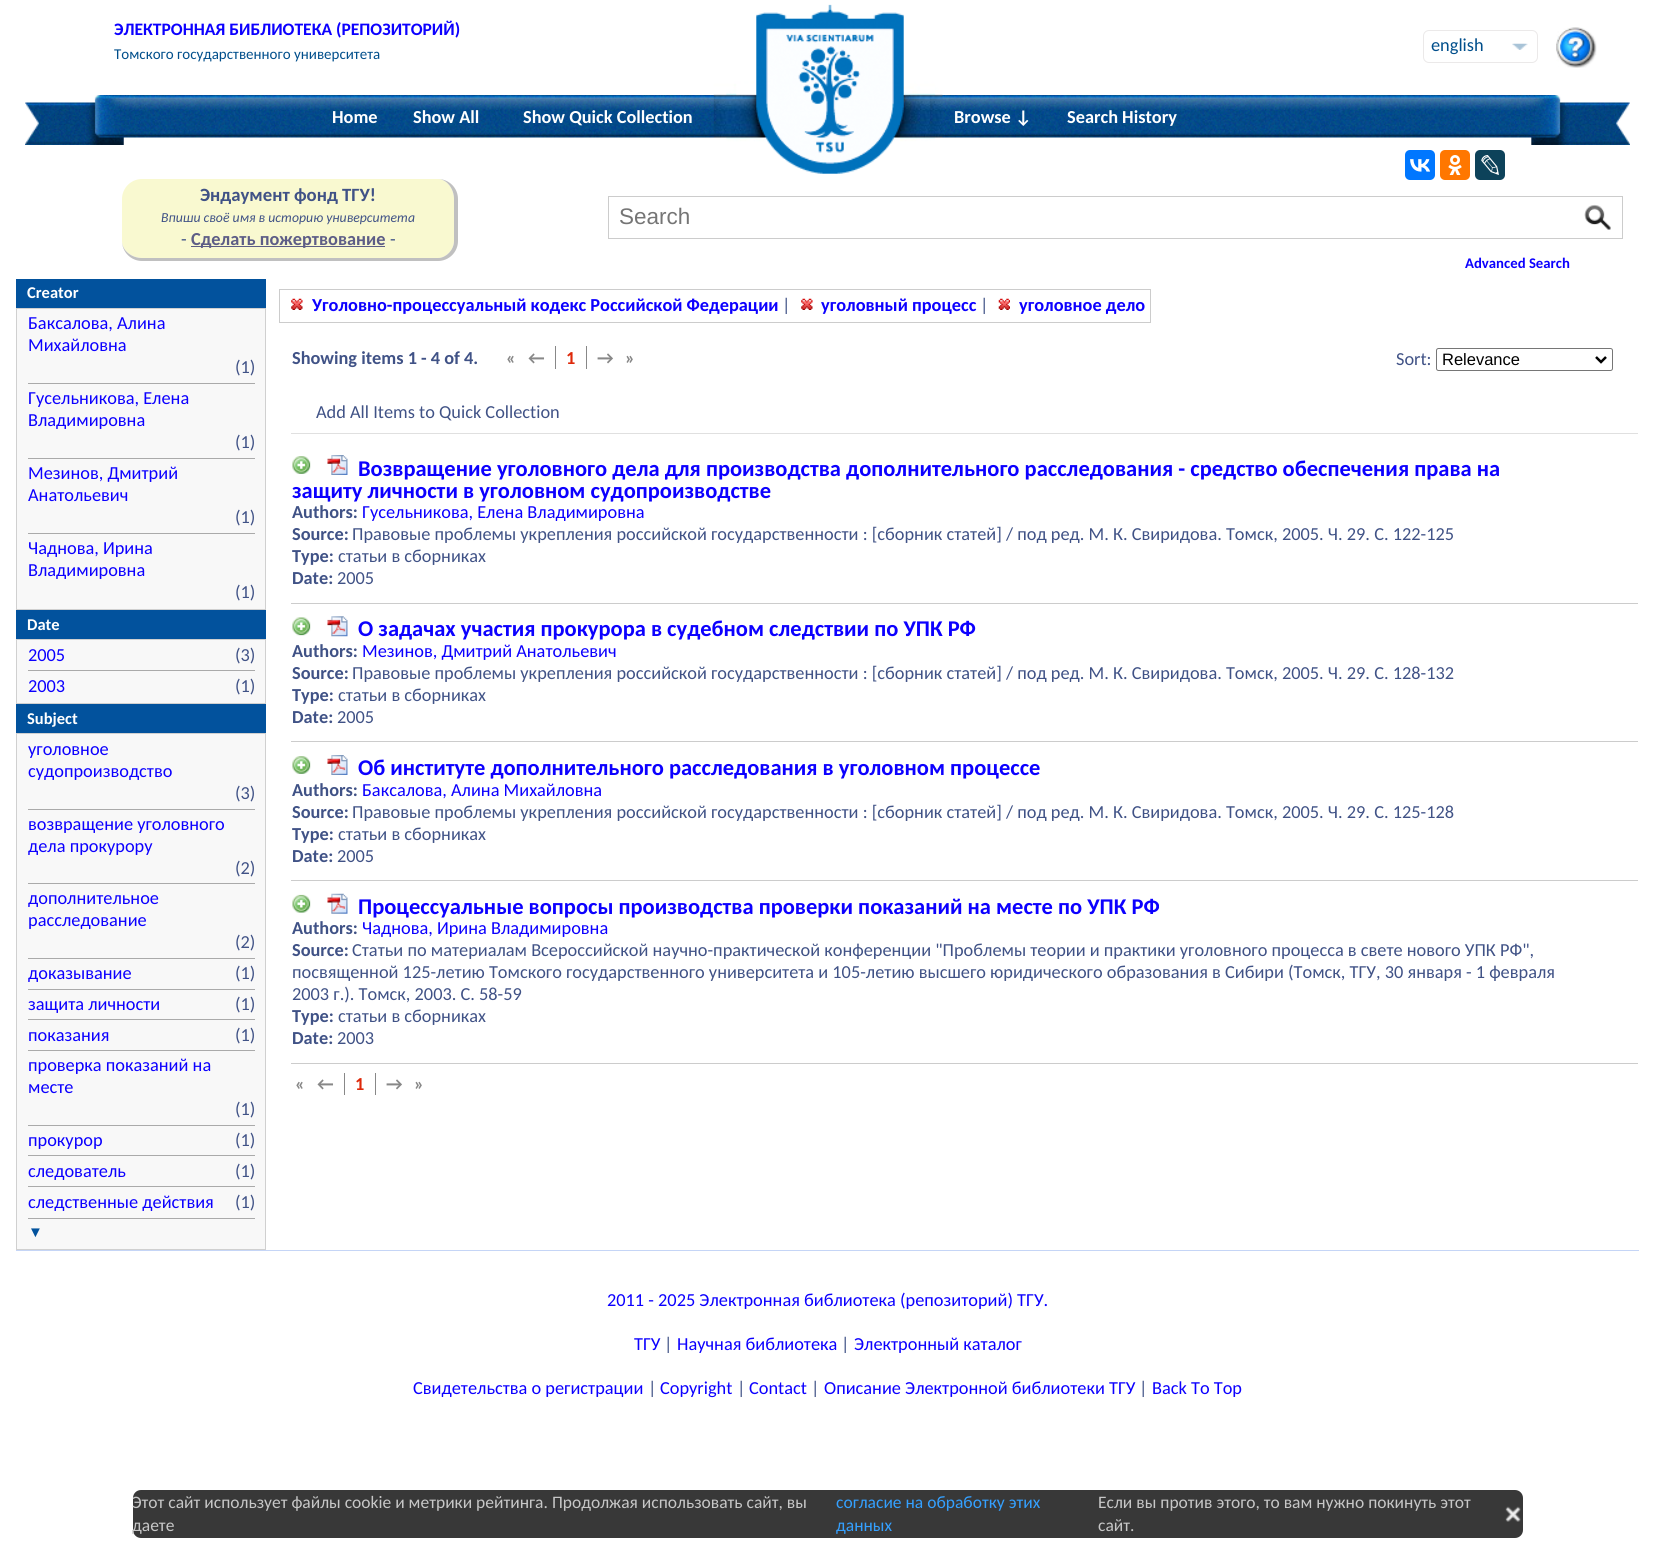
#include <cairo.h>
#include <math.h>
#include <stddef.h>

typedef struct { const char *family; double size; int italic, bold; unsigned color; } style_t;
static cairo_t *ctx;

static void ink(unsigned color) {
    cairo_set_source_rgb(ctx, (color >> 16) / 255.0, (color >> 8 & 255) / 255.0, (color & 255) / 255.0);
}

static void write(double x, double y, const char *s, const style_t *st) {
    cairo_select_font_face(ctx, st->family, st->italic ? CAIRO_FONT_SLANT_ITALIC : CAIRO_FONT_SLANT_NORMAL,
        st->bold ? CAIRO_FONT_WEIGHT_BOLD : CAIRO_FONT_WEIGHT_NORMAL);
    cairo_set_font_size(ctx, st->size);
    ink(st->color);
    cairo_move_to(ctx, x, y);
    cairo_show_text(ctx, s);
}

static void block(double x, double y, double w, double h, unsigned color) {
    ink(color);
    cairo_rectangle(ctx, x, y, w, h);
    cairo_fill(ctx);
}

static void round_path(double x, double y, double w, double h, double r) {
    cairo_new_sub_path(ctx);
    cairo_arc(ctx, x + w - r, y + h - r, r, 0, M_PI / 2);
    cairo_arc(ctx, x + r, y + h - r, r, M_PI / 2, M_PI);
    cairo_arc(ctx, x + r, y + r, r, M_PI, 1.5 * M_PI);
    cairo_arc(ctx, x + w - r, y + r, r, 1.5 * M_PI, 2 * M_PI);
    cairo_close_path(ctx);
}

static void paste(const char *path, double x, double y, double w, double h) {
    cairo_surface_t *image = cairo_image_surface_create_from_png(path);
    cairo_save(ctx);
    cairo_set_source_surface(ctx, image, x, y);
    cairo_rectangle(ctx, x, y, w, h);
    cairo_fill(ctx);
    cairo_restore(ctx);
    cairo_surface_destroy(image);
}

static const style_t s1 = {"Carlito", 17.5, 0, 1, 0x0c00ff};
static const style_t s2 = {"Carlito", 15, 0, 0, 0x004e8b};
static const style_t s3 = {"Carlito", 18.33, 0, 0, 0x004e8b};
static const style_t s4 = {"Carlito", 18.33, 0, 1, 0xffffff};
static const style_t s5 = {"Carlito", 18.75, 0, 1, 0x405286};
static const style_t s6 = {"Carlito", 13.75, 1, 0, 0x405286};
static const style_t s7 = {"Carlito", 18.33, 0, 0, 0x405286};
static const style_t s8 = {"Carlito", 18.33, 0, 1, 0x5d5d86};
static const style_t s9 = {"Liberation Sans", 22.5, 0, 0, 0x757575};
static const style_t s10 = {"Carlito", 14.75, 0, 1, 0x0c00ff};
static const style_t s11 = {"Carlito", 16.5, 0, 1, 0xffffff};
static const style_t s12 = {"Carlito", 18.33, 0, 0, 0x0c00ff};
static const style_t s13 = {"Liberation Sans", 15, 0, 1, 0x02529d};
static const style_t s14 = {"Carlito", 18.33, 0, 1, 0x0c00ff};
static const style_t s15 = {"Carlito", 18.33, 0, 1, 0x405286};
static const style_t s16 = {"Carlito", 18.33, 0, 1, 0x888888};
static const style_t s17 = {"Carlito", 18.33, 0, 1, 0xde290a};
static const style_t s18 = {"Liberation Sans", 16.5, 0, 0, 0x000000};
static const style_t s19 = {"Carlito", 22.5, 0, 1, 0x0c00ff};
static const style_t s20 = {"Carlito", 17.5, 0, 0, 0xc7c7c7};
static const style_t s21 = {"Carlito", 17.5, 0, 0, 0x34a0ff};

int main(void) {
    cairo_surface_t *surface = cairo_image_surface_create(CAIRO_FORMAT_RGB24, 1654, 1546);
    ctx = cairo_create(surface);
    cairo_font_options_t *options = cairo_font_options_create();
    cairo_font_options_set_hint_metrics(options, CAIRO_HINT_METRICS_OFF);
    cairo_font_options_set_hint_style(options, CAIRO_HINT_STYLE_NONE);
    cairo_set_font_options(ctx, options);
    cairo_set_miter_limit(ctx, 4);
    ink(0xffffff);
    cairo_paint(ctx);
    write(114, 35, "ЭЛЕКТРОННАЯ БИБЛИОТЕКА (РЕПОЗИТОРИЙ)", &s1);
    write(114, 59, "Томского государственного университета", &s2);
    round_path(1423.5, 30.5, 114, 32, 5.5);
    ink(0xebe9e9);
    cairo_set_line_width(ctx, 1);
    cairo_stroke(ctx);
    paste("pic1.png", 1512, 43, 16, 7);
    write(1431, 51, "english", &s3);
    paste("pic2.png", 1556, 27, 41, 41);
    paste("pic4.png", 143, 95, 1369, 43);
    paste("pic3.png", 25, 95, 119, 50);
    write(332, 123, "Home", &s4);
    write(413, 123, "Show All", &s4);
    write(523, 123, "Show Quick Collection", &s4);
    paste("pic5.png", 713, 4, 230, 170);
    write(954, 123, "Browse ↓", &s4);
    write(1067, 123, "Search History", &s4);
    paste("pic6.png", 1511, 95, 119, 50);
    ink(0xf9f9d0);
    cairo_new_path(ctx);
    cairo_move_to(ctx, 142, 179);
    cairo_line_to(ctx, 438, 179);
    cairo_curve_to(ctx, 446, 179, 454, 188, 454, 199);
    cairo_line_to(ctx, 454, 241);
    cairo_curve_to(ctx, 454, 250, 446, 258, 438, 258);
    cairo_line_to(ctx, 142, 258);
    cairo_curve_to(ctx, 131, 258, 122, 250, 122, 241);
    cairo_line_to(ctx, 122, 199);
    cairo_curve_to(ctx, 122, 188, 131, 179, 142, 179);
    cairo_close_path(ctx);
    cairo_fill(ctx);
    ink(0xc0c0c0);
    cairo_set_fill_rule(ctx, CAIRO_FILL_RULE_EVEN_ODD);
    cairo_new_path(ctx);
    cairo_move_to(ctx, 142, 179);
    cairo_line_to(ctx, 438, 179);
    cairo_curve_to(ctx, 449, 179, 458, 188, 458, 199);
    cairo_line_to(ctx, 458, 241);
    cairo_curve_to(ctx, 458, 252, 449, 261, 438, 261);
    cairo_line_to(ctx, 142, 261);
    cairo_curve_to(ctx, 131, 261, 122, 252, 122, 241);
    cairo_line_to(ctx, 122, 199);
    cairo_curve_to(ctx, 122, 188, 131, 179, 142, 179);
    cairo_close_path(ctx);
    cairo_move_to(ctx, 142, 179);
    cairo_line_to(ctx, 438, 179);
    cairo_curve_to(ctx, 446, 179, 454, 188, 454, 199);
    cairo_line_to(ctx, 454, 241);
    cairo_curve_to(ctx, 454, 250, 446, 258, 438, 258);
    cairo_line_to(ctx, 142, 258);
    cairo_curve_to(ctx, 131, 258, 122, 250, 122, 241);
    cairo_line_to(ctx, 122, 199);
    cairo_curve_to(ctx, 122, 188, 131, 179, 142, 179);
    cairo_close_path(ctx);
    cairo_fill(ctx);
    write(200, 201, "Эндаумент фонд ТГУ!", &s5);
    write(161, 222, "Впиши своё имя в историю университета", &s6);
    write(181, 245, "-", &s7);
    block(191, 246, 194, 1, 0x5d5d86);
    write(191, 245, "Сделать пожертвование", &s8);
    write(390, 245, "-", &s7);
    cairo_rectangle(ctx, 608.5, 196.5, 1014, 42);
    ink(0xcccccc);
    cairo_stroke(ctx);
    write(619, 224, "Search", &s9);
    paste("pic7.png", 1584, 204, 27, 26);
    write(1465, 268, "Advanced Search", &s10);
    block(16, 609, 250, 1, 0xd0d0d0);
    block(16, 279, 250, 29, 0x02529d);
    block(16, 308, 250, 1, 0xd0d0d0);
    write(27, 298, "Creator", &s11);
    block(17, 309, 248, 300, 0xf8f8f8);
    block(265, 309, 1, 300, 0xd0d0d0);
    block(16, 309, 1, 300, 0xd0d0d0);
    write(28, 329, "Баксалова, Алина", &s12);
    write(28, 351, "Михайловна", &s12);
    write(235, 373, "(1)", &s7);
    block(28, 383, 227, 1, 0xaaaaaa);
    write(28, 404, "Гусельникова, Елена", &s12);
    write(28, 426, "Владимировна", &s12);
    write(235, 448, "(1)", &s7);
    block(28, 458, 227, 1, 0xaaaaaa);
    write(28, 479, "Мезинов, Дмитрий", &s12);
    write(28, 501, "Анатольевич", &s12);
    write(235, 523, "(1)", &s7);
    block(28, 533, 227, 1, 0xaaaaaa);
    write(28, 554, "Чаднова, Ирина", &s12);
    write(28, 576, "Владимировна", &s12);
    write(235, 598, "(1)", &s7);
    block(16, 703, 250, 1, 0xd0d0d0);
    block(16, 610, 250, 29, 0x02529d);
    block(16, 639, 250, 1, 0xd0d0d0);
    write(27, 630, "Date", &s11);
    block(17, 640, 248, 63, 0xf8f8f8);
    block(265, 640, 1, 63, 0xd0d0d0);
    block(16, 640, 1, 63, 0xd0d0d0);
    write(28, 661, "2005", &s12);
    write(235, 661, "(3)", &s7);
    block(28, 670, 227, 1, 0xaaaaaa);
    write(28, 692, "2003", &s12);
    write(235, 692, "(1)", &s7);
    block(16, 1249, 250, 1, 0xd0d0d0);
    block(16, 704, 250, 29, 0x02529d);
    block(16, 733, 250, 1, 0xd0d0d0);
    write(27, 724, "Subject", &s11);
    block(17, 734, 248, 515, 0xf8f8f8);
    block(265, 734, 1, 515, 0xd0d0d0);
    block(16, 734, 1, 515, 0xd0d0d0);
    write(28, 755, "уголовное", &s12);
    write(28, 777, "судопроизводство", &s12);
    write(235, 799, "(3)", &s7);
    block(28, 809, 227, 1, 0xaaaaaa);
    write(28, 830, "возвращение уголовного", &s12);
    write(28, 852, "дела прокурору", &s12);
    write(235, 874, "(2)", &s7);
    block(28, 883, 227, 1, 0xaaaaaa);
    write(28, 904, "дополнительное", &s12);
    write(28, 926, "расследование", &s12);
    write(235, 948, "(2)", &s7);
    block(28, 958, 227, 1, 0xaaaaaa);
    write(28, 979, "доказывание", &s12);
    write(235, 979, "(1)", &s7);
    block(28, 989, 227, 1, 0xaaaaaa);
    write(28, 1010, "защита личности", &s12);
    write(235, 1010, "(1)", &s7);
    block(28, 1019, 227, 1, 0xaaaaaa);
    write(28, 1041, "показания", &s12);
    write(235, 1041, "(1)", &s7);
    block(28, 1050, 227, 1, 0xaaaaaa);
    write(28, 1071, "проверка показаний на", &s12);
    write(28, 1093, "месте", &s12);
    write(235, 1115, "(1)", &s7);
    block(28, 1125, 227, 1, 0xaaaaaa);
    write(28, 1146, "прокурор", &s12);
    write(235, 1146, "(1)", &s7);
    block(28, 1155, 227, 1, 0xaaaaaa);
    write(28, 1177, "следователь", &s12);
    write(235, 1177, "(1)", &s7);
    block(28, 1186, 227, 1, 0xaaaaaa);
    write(28, 1208, "следственные действия", &s12);
    write(235, 1208, "(1)", &s7);
    block(28, 1218, 227, 1, 0xaaaaaa);
    write(28, 1237, "▼", &s13);
    cairo_rectangle(ctx, 279.5, 289.5, 871, 33);
    ink(0xcccccc);
    cairo_stroke(ctx);
    paste("pic8.png", 291, 298, 12, 12);
    write(312, 311, "Уголовно-процессуальный кодекс Российской Федерации", &s14);
    write(782, 311, "|", &s7);
    paste("pic8.png", 801, 298, 12, 12);
    write(821, 311, "уголовный процесс", &s14);
    write(980, 311, "|", &s7);
    paste("pic9.png", 998, 298, 12, 12);
    write(1019, 311, "уголовное дело", &s14);
    ink(0x0077ff);
    round_path(1405, 150, 30, 30, 5);
    cairo_fill(ctx);
    paste("pic10.png", 1410, 159, 20, 13);
    ink(0xff7700);
    round_path(1440, 150, 30, 30, 5);
    cairo_fill(ctx);
    paste("pic11.png", 1448, 155, 14, 20);
    ink(0x0d425a);
    round_path(1475, 150, 30, 30, 5);
    cairo_fill(ctx);
    paste("pic12.png", 1481, 155, 18, 20);
    write(292, 364, "Showing items 1 - 4 of 4.", &s15);
    write(506, 364, "«", &s16);
    write(528, 364, "←", &s16);
    block(555, 346, 1, 23, 0x888888);
    write(566, 364, "1", &s17);
    write(597, 364, "→", &s16);
    block(586, 346, 1, 23, 0x888888);
    write(625, 364, "»", &s16);
    write(1396, 365, "Sort:", &s7);
    round_path(1436.5, 348.5, 176, 22, 2);
    ink(0x767676);
    cairo_stroke(ctx);
    cairo_new_path(ctx);
    cairo_move_to(ctx, 1596, 357);
    cairo_line_to(ctx, 1601, 362);
    cairo_line_to(ctx, 1606, 357);
    ink(0x000000);
    cairo_set_line_width(ctx, 2.5);
    cairo_stroke(ctx);
    write(1442, 365, "Relevance", &s18);
    write(316, 418, "Add All Items to Quick Collection", &s7);
    block(291, 433, 1347, 1, 0xe0e0e0);
    block(291, 603, 1347, 1, 0xcccccc);
    paste("pic13.png", 292, 456, 19, 18);
    paste("pic14.png", 327, 455, 21, 20);
    write(358, 476, "Возвращение уголовного дела для производства дополнительного расследования - средство обеспечения права на", &s19);
    write(292, 498, "защиту личности в уголовном судопроизводстве", &s19);
    write(292, 518, "Authors:", &s15);
    write(362, 518, "Гусельникова, Елена Владимировна", &s12);
    write(292, 540, "Source:", &s15);
    write(352, 540, "Правовые проблемы укрепления российской государственности : [сборник статей] / под ред. М. К. Свиридова. Томск, 2005. Ч. 29. С. 122-125", &s7);
    write(292, 562, "Type:", &s15);
    write(338, 562, "статьи в сборниках", &s7);
    write(292, 584, "Date:", &s15);
    write(337, 584, "2005", &s7);
    block(291, 741, 1347, 1, 0xcccccc);
    paste("pic15.png", 292, 617, 19, 19);
    paste("pic16.png", 327, 616, 21, 21);
    write(358, 636, "О задачах участия прокурора в судебном следствии по УПК РФ", &s19);
    write(292, 657, "Authors:", &s15);
    write(362, 657, "Мезинов, Дмитрий Анатольевич", &s12);
    write(292, 679, "Source:", &s15);
    write(352, 679, "Правовые проблемы укрепления российской государственности : [сборник статей] / под ред. М. К. Свиридова. Томск, 2005. Ч. 29. С. 128-132", &s7);
    write(292, 701, "Type:", &s15);
    write(338, 701, "статьи в сборниках", &s7);
    write(292, 723, "Date:", &s15);
    write(337, 723, "2005", &s7);
    block(291, 880, 1347, 1, 0xcccccc);
    paste("pic13.png", 292, 756, 19, 18);
    paste("pic14.png", 327, 755, 21, 20);
    write(358, 775, "Об институте дополнительного расследования в уголовном процессе", &s19);
    write(292, 796, "Authors:", &s15);
    write(362, 796, "Баксалова, Алина Михайловна", &s12);
    write(292, 818, "Source:", &s15);
    write(352, 818, "Правовые проблемы укрепления российской государственности : [сборник статей] / под ред. М. К. Свиридова. Томск, 2005. Ч. 29. С. 125-128", &s7);
    write(292, 840, "Type:", &s15);
    write(338, 840, "статьи в сборниках", &s7);
    write(292, 862, "Date:", &s15);
    write(337, 862, "2005", &s7);
    block(291, 1063, 1347, 1, 0xcccccc);
    paste("pic17.png", 292, 894, 19, 19);
    paste("pic18.png", 327, 893, 21, 21);
    write(358, 914, "Процессуальные вопросы производства проверки показаний на месте по УПК РФ", &s19);
    write(292, 934, "Authors:", &s15);
    write(362, 934, "Чаднова, Ирина Владимировна", &s12);
    write(292, 956, "Source:", &s15);
    write(352, 956, "Статьи по материалам Всероссийской научно-практической конференции \"Проблемы теории и практики уголовного процесса в свете нового УПК РФ\",", &s7);
    write(292, 978, "посвященной 125-летию Томского государственного университета и 105-летию высшего юридического образования в Сибири (Томск, ТГУ, 30 января - 1 февраля", &s7);
    write(292, 1000, "2003 г.). Томск, 2003. С. 58-59", &s7);
    write(292, 1022, "Type:", &s15);
    write(338, 1022, "статьи в сборниках", &s7);
    write(292, 1044, "Date:", &s15);
    write(337, 1044, "2003", &s7);
    write(295, 1090, "«", &s16);
    write(317, 1090, "←", &s16);
    block(344, 1073, 1, 22, 0x888888);
    write(355, 1090, "1", &s17);
    write(386, 1090, "→", &s16);
    block(375, 1073, 1, 22, 0x888888);
    write(414, 1090, "»", &s16);
    block(16, 1250, 1623, 1, 0xc5d5f6);
    write(607, 1306, "2011 - 2025 Электронная библиотека (репозиторий) ТГУ.", &s12);
    write(634, 1350, "ТГУ", &s12);
    write(664, 1350, "|", &s7);
    write(677, 1350, "Научная библиотека", &s12);
    write(841, 1350, "|", &s7);
    write(854, 1350, "Электронный каталог", &s12);
    write(413, 1394, "Свидетельства о регистрации", &s12);
    write(648, 1394, "|", &s7);
    write(660, 1394, "Copyright", &s12);
    write(737, 1394, "|", &s7);
    write(749, 1394, "Contact", &s12);
    write(811, 1394, "|", &s7);
    write(824, 1394, "Описание Электронной библиотеки ТГУ", &s12);
    write(1139, 1394, "|", &s7);
    write(1152, 1394, "Back To Top", &s12);
    ink(0x383838);
    round_path(133, 1490, 1390, 48, 8);
    cairo_fill(ctx);
    write(132, 1508, "Этот сайт использует файлы cookie и метрики рейтинга. Продолжая использовать сайт, вы", &s20);
    write(836, 1508, "согласие на обработку этих", &s21);
    write(836, 1531, "данных", &s21);
    write(1098, 1508, "Если вы против этого, то вам нужно покинуть этот", &s20);
    paste("pic19.png", 1505, 1506, 16, 16);
    write(132, 1531, "даете", &s20);
    write(1098, 1531, "сайт.", &s20);
    cairo_surface_write_to_png(surface, "screenshot.png");
    cairo_font_options_destroy(options);
    cairo_destroy(ctx);
    cairo_surface_destroy(surface);
    return 0;
}
